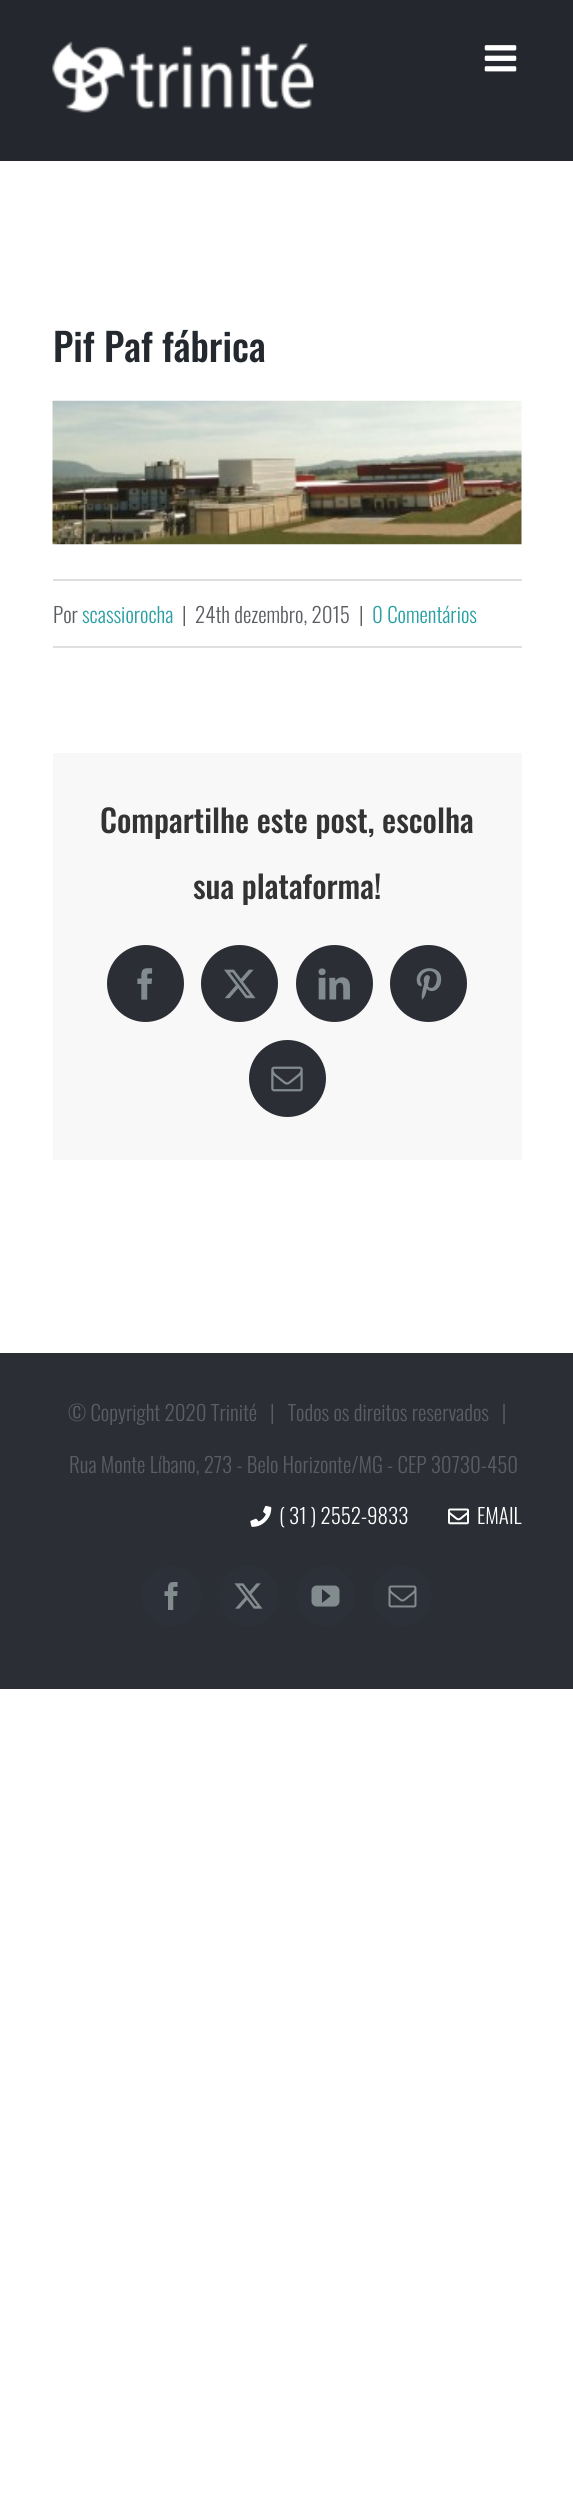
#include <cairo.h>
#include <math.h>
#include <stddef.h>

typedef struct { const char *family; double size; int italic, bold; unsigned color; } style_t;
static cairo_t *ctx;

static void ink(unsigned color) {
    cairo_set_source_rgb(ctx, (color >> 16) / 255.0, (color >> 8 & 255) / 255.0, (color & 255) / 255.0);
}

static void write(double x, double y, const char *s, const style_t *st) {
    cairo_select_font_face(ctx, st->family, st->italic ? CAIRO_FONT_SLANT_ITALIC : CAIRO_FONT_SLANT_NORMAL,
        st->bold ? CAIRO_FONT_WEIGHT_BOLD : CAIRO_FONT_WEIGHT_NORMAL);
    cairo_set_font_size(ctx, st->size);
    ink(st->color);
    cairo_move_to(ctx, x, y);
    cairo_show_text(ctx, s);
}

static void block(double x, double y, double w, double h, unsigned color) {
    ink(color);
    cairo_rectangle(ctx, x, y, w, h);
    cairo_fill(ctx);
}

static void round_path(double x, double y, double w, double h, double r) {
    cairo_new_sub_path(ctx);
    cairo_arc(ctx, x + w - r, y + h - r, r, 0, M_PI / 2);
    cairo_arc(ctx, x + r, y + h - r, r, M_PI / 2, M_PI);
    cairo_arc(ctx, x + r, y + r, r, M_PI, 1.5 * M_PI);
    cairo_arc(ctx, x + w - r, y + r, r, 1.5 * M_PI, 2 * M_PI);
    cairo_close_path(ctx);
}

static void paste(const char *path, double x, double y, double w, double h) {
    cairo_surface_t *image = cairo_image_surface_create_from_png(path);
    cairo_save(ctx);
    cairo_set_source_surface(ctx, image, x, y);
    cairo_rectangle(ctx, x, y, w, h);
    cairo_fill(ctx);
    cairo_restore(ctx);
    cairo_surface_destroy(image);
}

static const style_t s1 = {"Oswald Medium", 38.5, 0, 0, 0x242930};
static const style_t s2 = {"Oswald Light", 21, 0, 0, 0x5a5d62};
static const style_t s3 = {"Oswald Light", 21, 0, 0, 0x2ba0a3};
static const style_t s4 = {"Oswald Medium", 31.5, 0, 0, 0x333333};
static const style_t s5 = {"Oswald Light", 21, 0, 0, 0xffffff};

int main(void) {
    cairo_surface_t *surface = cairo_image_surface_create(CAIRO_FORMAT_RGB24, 573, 2517);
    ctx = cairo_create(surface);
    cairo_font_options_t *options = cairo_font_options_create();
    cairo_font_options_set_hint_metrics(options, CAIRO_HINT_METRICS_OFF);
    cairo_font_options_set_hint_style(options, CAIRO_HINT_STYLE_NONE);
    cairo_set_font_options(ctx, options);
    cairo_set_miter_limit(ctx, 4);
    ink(0xffffff);
    cairo_paint(ctx);
    block(0, 0, 573, 161, 0x24272d);
    paste("pic1.png", 52, 41, 262, 72);
    paste("pic2.png", 484, 45, 33, 27);
    write(53, 362, "Pif Paf fábrica", &s1);
    paste("pic3.png", 52, 400, 470, 145);
    block(53, 579, 469, 2, 0xe0dede);
    block(53, 646, 469, 2, 0xe0dede);
    write(53, 623, "Por", &s2);
    write(82, 623, "scassiorocha", &s3);
    write(182, 623, "|", &s2);
    write(195, 623, "24th dezembro, 2015", &s2);
    write(359, 623, "|", &s2);
    write(372, 623, "0 Comentários", &s3);
    block(53, 753, 469, 407, 0xf8f8f8);
    write(100, 833, "Compartilhe este post, escolha", &s4);
    write(193, 899, "sua plataforma!", &s4);
    ink(0x2b2e35);
    cairo_new_path(ctx);
    cairo_arc(ctx, 145.5, 983.5, 37.5, 0, 2 * M_PI);
    cairo_fill_preserve(ctx);
    cairo_stroke(ctx);
    paste("pic4.png", 137, 968, 16, 32);
    cairo_arc(ctx, 239.5, 983.5, 37.5, 0, 2 * M_PI);
    cairo_fill_preserve(ctx);
    cairo_stroke(ctx);
    paste("pic5.png", 224, 969, 32, 30);
    cairo_arc(ctx, 334.5, 983.5, 37.5, 0, 2 * M_PI);
    cairo_fill_preserve(ctx);
    cairo_stroke(ctx);
    paste("pic6.png", 318, 968, 32, 32);
    cairo_arc(ctx, 428.5, 983.5, 37.5, 0, 2 * M_PI);
    cairo_fill_preserve(ctx);
    cairo_stroke(ctx);
    paste("pic7.png", 416, 968, 26, 32);
    cairo_arc(ctx, 287.5, 1078.5, 37.5, 0, 2 * M_PI);
    cairo_fill_preserve(ctx);
    cairo_stroke(ctx);
    paste("pic8.png", 271, 1066, 32, 26);
    block(0, 1353, 573, 336, 0x2b2e35);
    write(68, 1421, "© Copyright 2020 Trinité   |   Todos os direitos reservados   |", &s2);
    write(69, 1473, "Rua Monte Líbano, 273 - Belo Horizonte/MG - CEP 30730-450", &s2);
    paste("pic9.png", 250, 1505, 22, 22);
    write(279, 1524, "( 31 ) 2552-9833", &s5);
    paste("pic10.png", 448, 1508, 21, 17);
    write(477, 1524, "EMAIL", &s5);
    ink(0x2c3038);
    round_path(142, 1566, 59, 60, 29.5);
    cairo_fill(ctx);
    paste("pic11.png", 164, 1582, 14, 28);
    round_path(219, 1566, 59, 60, 29.5);
    cairo_fill(ctx);
    paste("pic12.png", 234, 1583, 29, 26);
    round_path(296, 1566, 59, 60, 29.5);
    cairo_fill(ctx);
    paste("pic13.png", 311, 1585, 29, 22);
    round_path(373, 1566, 59, 60, 29.5);
    cairo_fill(ctx);
    paste("pic14.png", 388, 1585, 29, 23);
    cairo_surface_write_to_png(surface, "screenshot.png");
    cairo_font_options_destroy(options);
    cairo_destroy(ctx);
    cairo_surface_destroy(surface);
    return 0;
}
